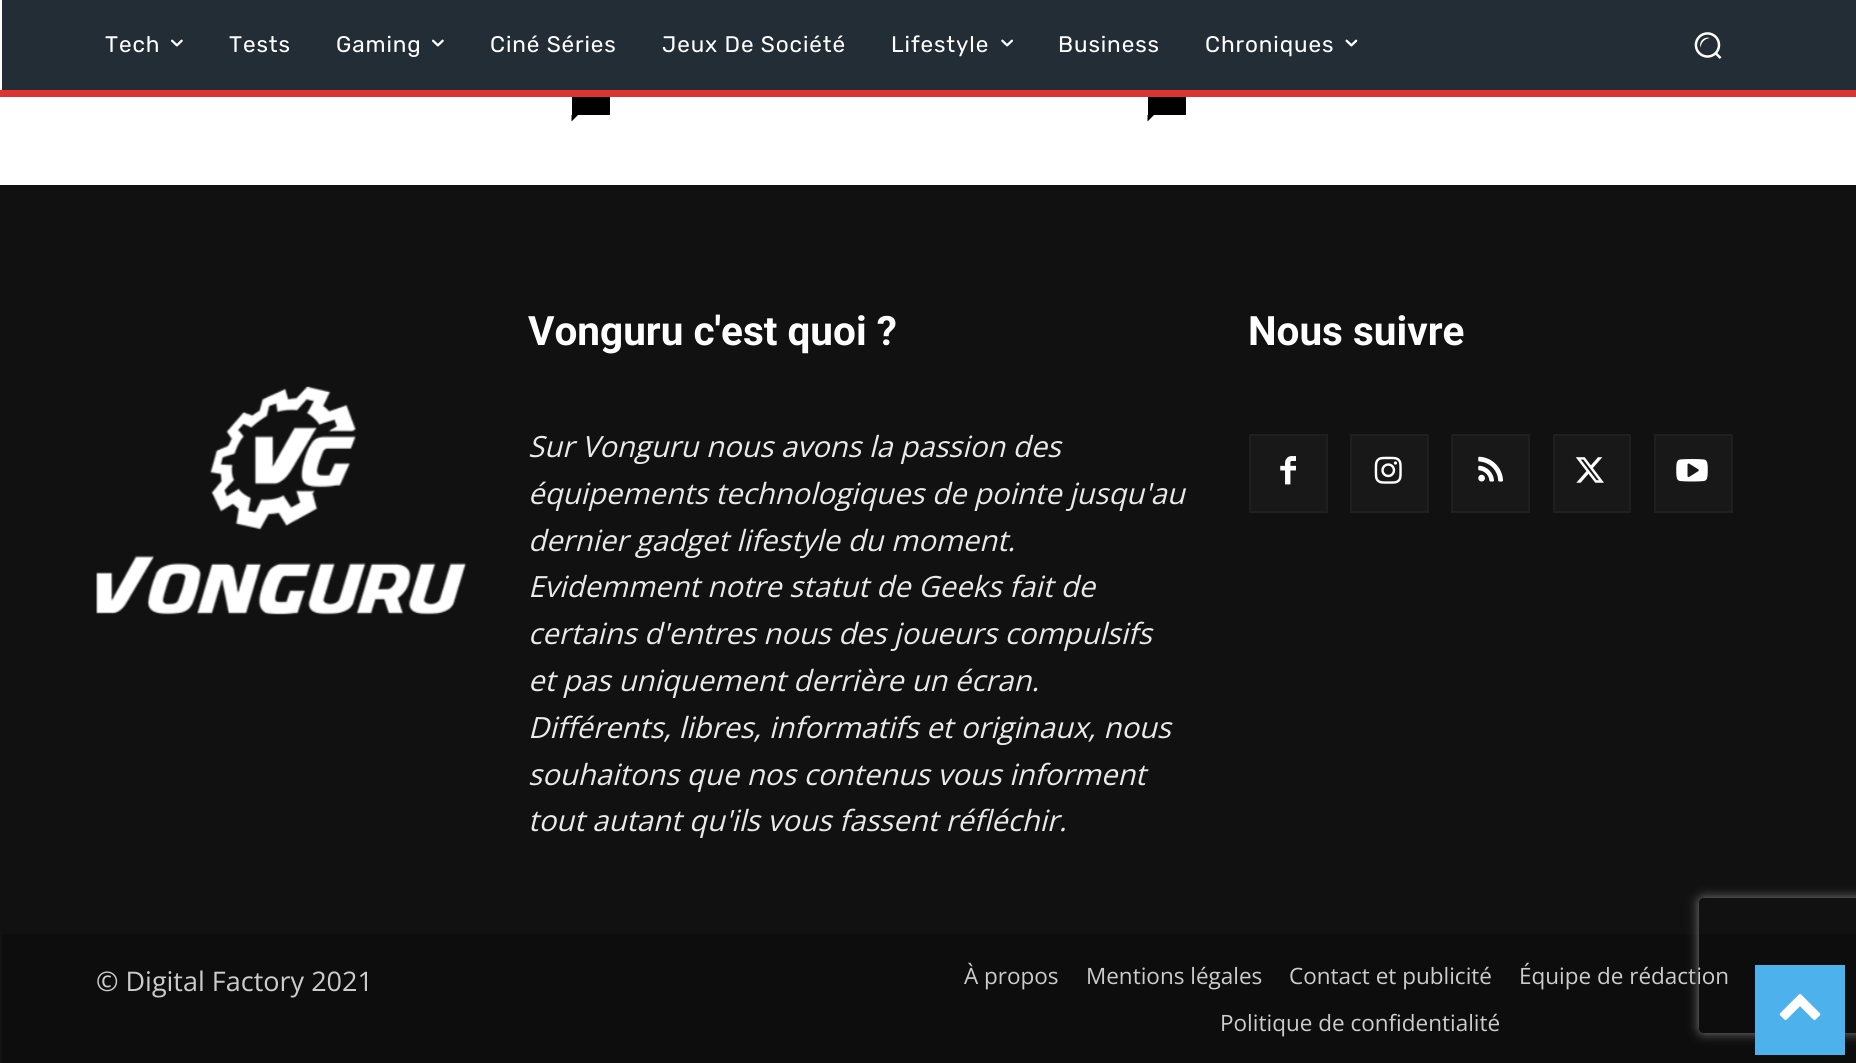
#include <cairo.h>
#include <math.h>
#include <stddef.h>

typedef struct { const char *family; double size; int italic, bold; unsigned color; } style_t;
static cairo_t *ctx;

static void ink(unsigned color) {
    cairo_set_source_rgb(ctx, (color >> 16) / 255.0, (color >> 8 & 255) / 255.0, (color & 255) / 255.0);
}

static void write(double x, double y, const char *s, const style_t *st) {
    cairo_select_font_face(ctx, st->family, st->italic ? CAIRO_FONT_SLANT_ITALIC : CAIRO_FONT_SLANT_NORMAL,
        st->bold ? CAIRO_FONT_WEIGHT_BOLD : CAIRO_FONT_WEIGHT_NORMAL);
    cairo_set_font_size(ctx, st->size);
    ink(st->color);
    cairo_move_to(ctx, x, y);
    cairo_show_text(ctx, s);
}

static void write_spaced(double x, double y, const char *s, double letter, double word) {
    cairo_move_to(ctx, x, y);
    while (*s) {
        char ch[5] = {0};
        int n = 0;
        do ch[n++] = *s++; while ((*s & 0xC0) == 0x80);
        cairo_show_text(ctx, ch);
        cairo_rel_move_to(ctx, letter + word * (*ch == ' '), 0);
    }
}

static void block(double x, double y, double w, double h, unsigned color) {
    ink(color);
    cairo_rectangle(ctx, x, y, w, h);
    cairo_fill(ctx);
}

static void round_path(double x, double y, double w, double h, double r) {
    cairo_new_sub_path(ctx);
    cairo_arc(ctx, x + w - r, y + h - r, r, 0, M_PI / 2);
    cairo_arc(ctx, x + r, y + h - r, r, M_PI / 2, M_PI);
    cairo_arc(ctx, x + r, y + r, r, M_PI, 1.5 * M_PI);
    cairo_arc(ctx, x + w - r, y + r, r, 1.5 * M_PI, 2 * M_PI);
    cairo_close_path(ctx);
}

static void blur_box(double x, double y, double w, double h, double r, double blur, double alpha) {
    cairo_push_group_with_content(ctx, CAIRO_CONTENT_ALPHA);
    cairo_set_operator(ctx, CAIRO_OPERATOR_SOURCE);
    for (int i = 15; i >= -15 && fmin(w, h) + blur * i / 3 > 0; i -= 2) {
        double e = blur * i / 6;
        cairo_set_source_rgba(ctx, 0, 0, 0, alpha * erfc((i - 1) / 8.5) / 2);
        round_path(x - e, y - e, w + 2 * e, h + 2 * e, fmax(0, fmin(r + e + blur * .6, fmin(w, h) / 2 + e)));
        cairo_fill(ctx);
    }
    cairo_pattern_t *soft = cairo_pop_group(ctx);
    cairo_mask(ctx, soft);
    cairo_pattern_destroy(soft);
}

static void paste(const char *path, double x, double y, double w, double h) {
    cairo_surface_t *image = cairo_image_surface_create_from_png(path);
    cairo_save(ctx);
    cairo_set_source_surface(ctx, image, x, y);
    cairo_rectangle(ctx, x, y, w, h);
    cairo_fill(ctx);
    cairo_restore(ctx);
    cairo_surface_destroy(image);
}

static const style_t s1 = {"Roboto", 40.5, 0, 1, 0xffffff};
static const style_t s2 = {"Open Sans", 29.25, 1, 0, 0xeaeaea};
static const style_t s3 = {"Open Sans", 27, 0, 0, 0xcccccc};
static const style_t s4 = {"Open Sans", 22.5, 0, 0, 0xcccccc};

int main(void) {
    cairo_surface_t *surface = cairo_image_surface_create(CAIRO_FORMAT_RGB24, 1856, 1063);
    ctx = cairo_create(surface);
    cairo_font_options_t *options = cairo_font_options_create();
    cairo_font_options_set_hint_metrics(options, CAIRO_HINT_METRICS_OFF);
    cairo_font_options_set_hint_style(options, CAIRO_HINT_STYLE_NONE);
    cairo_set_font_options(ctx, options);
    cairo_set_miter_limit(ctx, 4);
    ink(0x111111);
    cairo_paint(ctx);
    block(0, 0, 1856, 185, 0xffffff);
    block(572, 97, 38, 18, 0x000000);
    cairo_new_path(ctx);
    cairo_move_to(ctx, 571.5, 115);
    cairo_line_to(ctx, 578, 115);
    cairo_line_to(ctx, 571.5, 121.5);
    cairo_close_path(ctx);
    cairo_fill(ctx);
    block(1148, 97, 38, 18, 0x000000);
    cairo_new_path(ctx);
    cairo_move_to(ctx, 1147.5, 115);
    cairo_line_to(ctx, 1154, 115);
    cairo_line_to(ctx, 1147.5, 121.5);
    cairo_close_path(ctx);
    cairo_fill(ctx);
    block(2, 0, 1854, 90, 0x232d35);
    cairo_select_font_face(ctx, "Rubik", CAIRO_FONT_SLANT_NORMAL, CAIRO_FONT_WEIGHT_NORMAL);
    cairo_set_font_size(ctx, 22.5);
    ink(0xffffff);
    write_spaced(105, 52, "Tech", 0.9, 0);
    paste("pic1.png", 171, 39, 12, 8);
    write_spaced(229, 52, "Tests", 0.9, 0);
    write_spaced(336, 52, "Gaming", 0.9, 0);
    paste("pic1.png", 432, 39, 12, 8);
    write_spaced(490, 52, "Ciné Séries", 0.9, 0);
    write_spaced(662, 52, "Jeux De Société", 0.9, 0);
    write_spaced(891, 52, "Lifestyle", 0.9, 0);
    paste("pic2.png", 1001, 39, 12, 8);
    write_spaced(1058, 52, "Business", 0.9, 0);
    write_spaced(1205, 52, "Chroniques", 0.9, 0);
    paste("pic3.png", 1345, 39, 13, 8);
    paste("pic4.png", 1694, 32, 28, 27);
    block(0, 90, 1856, 7, 0xdd3333);
    write(528, 345, "Vonguru c'est quoi ?", &s1);
    write(528, 457, "Sur Vonguru nous avons la passion des", &s2);
    write(528, 504, "équipements technologiques de pointe jusqu'au", &s2);
    write(528, 551, "dernier gadget lifestyle du moment.", &s2);
    write(528, 597, "Evidemment notre statut de Geeks fait de", &s2);
    write(528, 644, "certains d'entres nous des joueurs compulsifs", &s2);
    write(528, 691, "et pas uniquement derrière un écran.", &s2);
    write(528, 738, "Différents, libres, informatifs et originaux, nous", &s2);
    write(528, 785, "souhaitons que nos contenus vous informent", &s2);
    write(528, 831, "tout autant qu'ils vous fassent réfléchir.", &s2);
    write(1248, 345, "Nous suivre", &s1);
    ink(0x181818);
    cairo_rectangle(ctx, 1250, 435, 77, 77);
    cairo_fill_preserve(ctx);
    ink(0x1f1f1f);
    cairo_stroke(ctx);
    paste("pic5.png", 1280, 456, 16, 29);
    ink(0x181818);
    cairo_rectangle(ctx, 1351, 435, 77, 77);
    cairo_fill_preserve(ctx);
    ink(0x1f1f1f);
    cairo_stroke(ctx);
    paste("pic6.png", 1374, 456, 28, 28);
    ink(0x181818);
    cairo_rectangle(ctx, 1452, 435, 77, 77);
    cairo_fill_preserve(ctx);
    ink(0x1f1f1f);
    cairo_stroke(ctx);
    paste("pic7.png", 1478, 456, 25, 26);
    ink(0x181818);
    cairo_rectangle(ctx, 1554, 435, 76, 77);
    cairo_fill_preserve(ctx);
    ink(0x1f1f1f);
    cairo_stroke(ctx);
    paste("pic8.png", 1575, 457, 29, 26);
    ink(0x181818);
    cairo_rectangle(ctx, 1655, 435, 77, 77);
    cairo_fill_preserve(ctx);
    ink(0x1f1f1f);
    cairo_stroke(ctx);
    paste("pic9.png", 1676, 459, 32, 23);
    paste("pic10.png", 96, 386, 371, 229);
    block(2, 934, 1854, 129, 0x0d0d0d);
    write(96, 991, "© Digital Factory 2021", &s3);
    write(964, 984, "À propos", &s4);
    write(1086, 984, "Mentions légales", &s4);
    write(1289, 984, "Contact et publicité", &s4);
    write(1519, 984, "Équipe de rédaction", &s4);
    write(1220, 1031, "Politique de confidentialité", &s4);
    cairo_save(ctx);
    cairo_set_fill_rule(ctx, CAIRO_FILL_RULE_EVEN_ODD);
    cairo_new_path(ctx);
    cairo_move_to(ctx, 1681, 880);
    cairo_line_to(ctx, 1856, 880);
    cairo_line_to(ctx, 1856, 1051);
    cairo_line_to(ctx, 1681, 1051);
    cairo_close_path(ctx);
    cairo_move_to(ctx, 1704, 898);
    cairo_line_to(ctx, 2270, 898);
    cairo_curve_to(ctx, 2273, 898, 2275, 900, 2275, 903);
    cairo_line_to(ctx, 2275, 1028);
    cairo_curve_to(ctx, 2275, 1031, 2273, 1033, 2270, 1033);
    cairo_line_to(ctx, 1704, 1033);
    cairo_curve_to(ctx, 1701, 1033, 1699, 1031, 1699, 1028);
    cairo_line_to(ctx, 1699, 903);
    cairo_curve_to(ctx, 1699, 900, 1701, 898, 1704, 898);
    cairo_close_path(ctx);
    cairo_clip(ctx);
    ink(0x808080);
    blur_box(1699, 898, 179, 135, 5, 5.5, 1);
    cairo_restore(ctx);
    block(1755, 965, 90, 90, 0x4db2ec);
    paste("pic11.png", 1779, 994, 42, 26);
    cairo_surface_write_to_png(surface, "screenshot.png");
    cairo_font_options_destroy(options);
    cairo_destroy(ctx);
    cairo_surface_destroy(surface);
    return 0;
}
